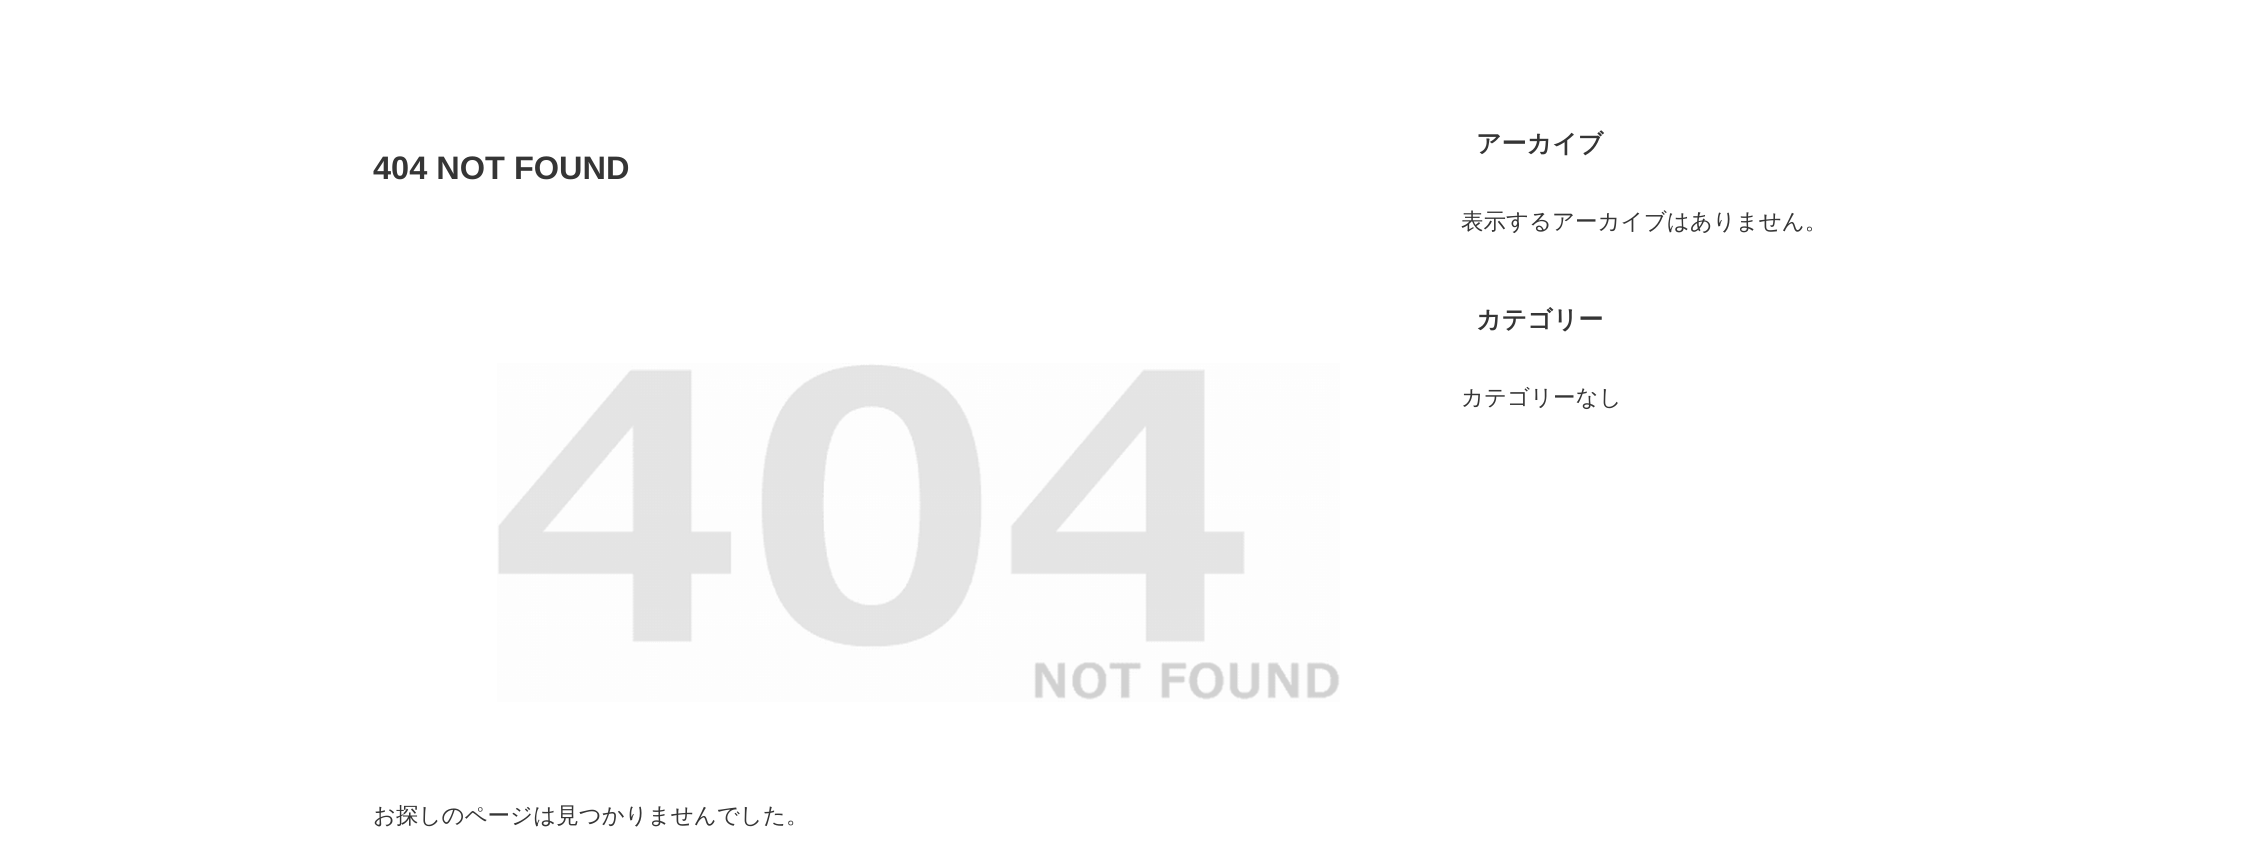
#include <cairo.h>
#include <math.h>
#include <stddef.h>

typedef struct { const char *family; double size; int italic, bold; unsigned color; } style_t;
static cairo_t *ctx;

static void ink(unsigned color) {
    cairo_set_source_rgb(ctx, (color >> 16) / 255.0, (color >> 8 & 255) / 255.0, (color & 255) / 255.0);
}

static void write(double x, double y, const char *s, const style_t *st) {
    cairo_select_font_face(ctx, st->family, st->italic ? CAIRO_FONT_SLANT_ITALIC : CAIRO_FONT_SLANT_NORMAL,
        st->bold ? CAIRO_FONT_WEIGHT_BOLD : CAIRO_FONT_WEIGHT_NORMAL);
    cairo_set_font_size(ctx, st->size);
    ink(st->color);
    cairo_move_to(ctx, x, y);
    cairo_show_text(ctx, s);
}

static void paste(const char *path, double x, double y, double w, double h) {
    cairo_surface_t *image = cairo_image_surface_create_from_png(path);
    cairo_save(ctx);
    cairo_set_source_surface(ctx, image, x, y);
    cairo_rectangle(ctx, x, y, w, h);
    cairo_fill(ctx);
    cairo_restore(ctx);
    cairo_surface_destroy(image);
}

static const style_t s1 = {"Liberation Sans", 32.5, 0, 1, 0x353535};
static const style_t s2 = {"WenQuanYi Zen Hei Medium", 22.5, 0, 0, 0x353535};
static const style_t s3 = {"WenQuanYi Zen Hei", 25, 0, 1, 0x353535};

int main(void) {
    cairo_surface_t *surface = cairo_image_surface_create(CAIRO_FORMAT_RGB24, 2241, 844);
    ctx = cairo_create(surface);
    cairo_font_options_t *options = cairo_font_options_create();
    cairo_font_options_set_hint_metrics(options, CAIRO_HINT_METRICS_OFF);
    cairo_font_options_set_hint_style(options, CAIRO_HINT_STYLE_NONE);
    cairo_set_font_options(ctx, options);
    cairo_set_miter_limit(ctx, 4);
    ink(0xffffff);
    cairo_paint(ctx);
    write(373, 179, "404 NOT FOUND", &s1);
    paste("pic1.png", 497, 363, 843, 339);
    write(373, 823, "お探しのページは見つかりませんでした。", &s2);
    write(1476, 152, "アーカイブ", &s3);
    write(1461, 229, "表示するアーカイブはありません。", &s2);
    write(1476, 328, "カテゴリー", &s3);
    write(1461, 405, "カテゴリーなし", &s2);
    cairo_surface_write_to_png(surface, "screenshot.png");
    cairo_font_options_destroy(options);
    cairo_destroy(ctx);
    cairo_surface_destroy(surface);
    return 0;
}
